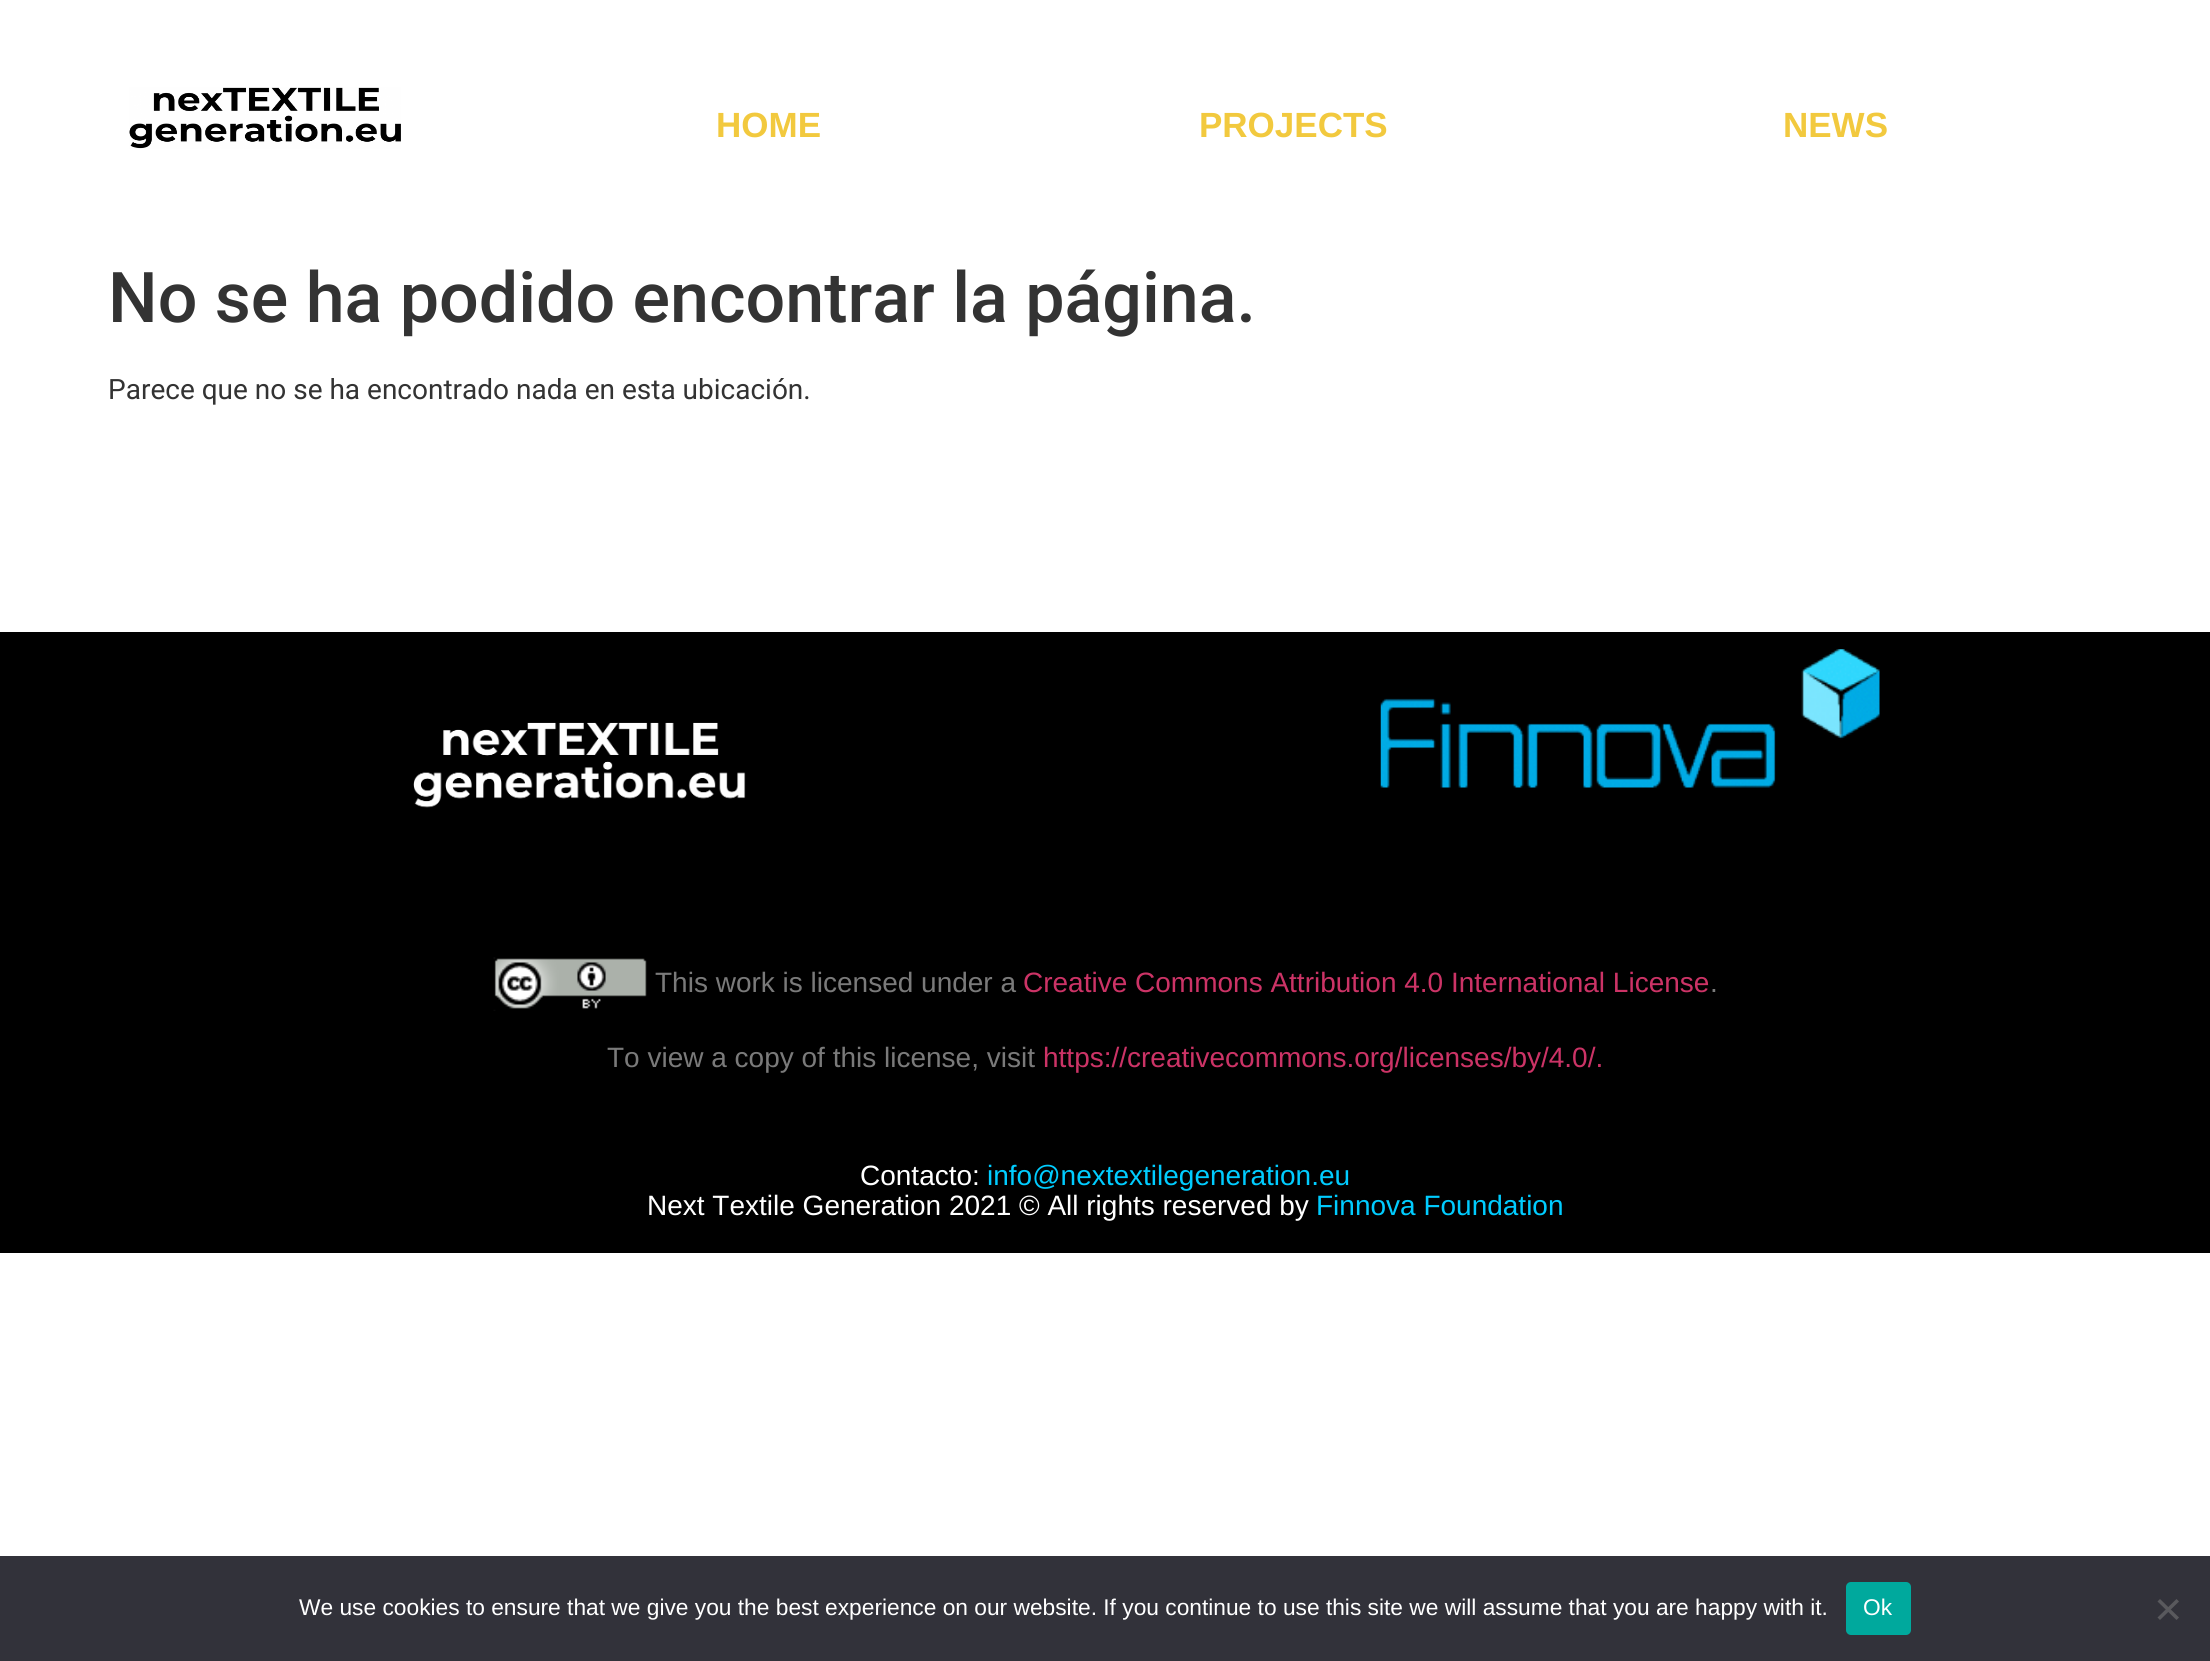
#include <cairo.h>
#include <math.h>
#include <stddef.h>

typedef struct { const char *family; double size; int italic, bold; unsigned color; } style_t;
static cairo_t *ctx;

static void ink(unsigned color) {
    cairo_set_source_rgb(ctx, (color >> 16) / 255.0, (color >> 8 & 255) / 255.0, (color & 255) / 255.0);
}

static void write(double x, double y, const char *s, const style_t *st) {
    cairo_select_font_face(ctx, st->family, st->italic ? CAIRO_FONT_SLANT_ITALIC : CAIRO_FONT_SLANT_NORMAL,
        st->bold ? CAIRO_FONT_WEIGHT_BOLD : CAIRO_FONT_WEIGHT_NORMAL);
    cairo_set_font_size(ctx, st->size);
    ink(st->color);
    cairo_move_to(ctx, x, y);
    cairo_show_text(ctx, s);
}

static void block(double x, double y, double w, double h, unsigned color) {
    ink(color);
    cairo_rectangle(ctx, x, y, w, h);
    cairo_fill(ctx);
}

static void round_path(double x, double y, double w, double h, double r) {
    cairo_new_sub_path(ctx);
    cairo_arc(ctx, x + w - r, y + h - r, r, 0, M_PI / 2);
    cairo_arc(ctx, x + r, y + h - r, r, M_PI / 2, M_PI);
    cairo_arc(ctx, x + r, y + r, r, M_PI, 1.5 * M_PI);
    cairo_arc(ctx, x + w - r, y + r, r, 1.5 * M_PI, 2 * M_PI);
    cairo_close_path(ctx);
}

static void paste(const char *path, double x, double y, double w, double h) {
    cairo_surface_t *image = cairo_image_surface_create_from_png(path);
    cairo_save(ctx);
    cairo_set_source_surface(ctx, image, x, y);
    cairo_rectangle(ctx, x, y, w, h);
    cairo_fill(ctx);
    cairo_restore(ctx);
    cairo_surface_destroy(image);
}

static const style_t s1 = {"Liberation Sans", 35, 0, 1, 0xf2c93e};
static const style_t s2 = {"Roboto Medium", 70, 0, 0, 0x333333};
static const style_t s3 = {"Roboto", 28, 0, 0, 0x333333};
static const style_t s4 = {"Liberation Sans", 28, 0, 0, 0x7a7a7a};
static const style_t s5 = {"Liberation Sans", 28, 0, 0, 0xcc3366};
static const style_t s6 = {"Liberation Sans", 28, 0, 0, 0xffffff};
static const style_t s7 = {"Liberation Sans", 28, 0, 0, 0x00ccff};
static const style_t s8 = {"Liberation Sans", 22.75, 0, 0, 0xffffff};

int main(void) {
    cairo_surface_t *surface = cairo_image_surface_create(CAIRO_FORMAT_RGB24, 2210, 1661);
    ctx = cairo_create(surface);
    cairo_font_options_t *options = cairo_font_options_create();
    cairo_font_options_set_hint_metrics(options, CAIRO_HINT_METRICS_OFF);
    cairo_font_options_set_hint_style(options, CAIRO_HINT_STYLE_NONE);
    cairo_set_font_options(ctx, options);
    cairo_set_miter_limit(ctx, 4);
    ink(0xffffff);
    cairo_paint(ctx);
    paste("pic1.png", 129, 87, 272, 62);
    write(716, 137, "HOME", &s1);
    write(1199, 137, "PROJECTS", &s1);
    write(1783, 137, "NEWS", &s1);
    write(108, 322, "No se ha podido encontrar la página.", &s2);
    write(108, 399, "Parece que no se ha encontrado nada en esta ubicación.", &s3);
    block(0, 632, 2210, 621, 0x000000);
    paste("pic2.png", 413, 722, 333, 86);
    paste("pic3.png", 1380, 649, 500, 139);
    paste("pic4.png", 493, 957, 154, 54);
    write(655, 992, "This work is licensed under a", &s4);
    write(1023, 992, "Creative Commons Attribution 4.0 International License", &s5);
    write(1710, 992, ".", &s4);
    write(607, 1067, "To view a copy of this license, visit", &s4);
    write(1043, 1067, "https://creativecommons.org/licenses/by/4.0/.", &s5);
    write(860, 1185, "Contacto:", &s6);
    write(987, 1185, "info@nextextilegeneration.eu", &s7);
    write(647, 1215, "Next Textile Generation 2021 © All rights reserved by", &s6);
    write(1316, 1215, "Finnova Foundation", &s7);
    block(0, 1556, 2210, 105, 0x32323a);
    write(299, 1615, "We use cookies to ensure that we give you the best experience on our website. If you continue to use this site we will assume that you are happy with it.", &s8);
    ink(0x00a99d);
    round_path(1846, 1582, 65, 53, 5);
    cairo_fill(ctx);
    write(1863, 1615, "Ok", &s8);
    ink(0x59595d);
    cairo_new_path(ctx);
    cairo_move_to(ctx, 2176.5, 1599);
    cairo_line_to(ctx, 2179, 1601.5);
    cairo_line_to(ctx, 2160, 1620);
    cairo_line_to(ctx, 2157.5, 1617.5);
    cairo_close_path(ctx);
    cairo_fill(ctx);
    cairo_new_path(ctx);
    cairo_move_to(ctx, 2157.5, 1601.5);
    cairo_line_to(ctx, 2160, 1599);
    cairo_line_to(ctx, 2179, 1617.5);
    cairo_line_to(ctx, 2176.5, 1620);
    cairo_close_path(ctx);
    cairo_fill(ctx);
    cairo_surface_write_to_png(surface, "screenshot.png");
    cairo_font_options_destroy(options);
    cairo_destroy(ctx);
    cairo_surface_destroy(surface);
    return 0;
}
